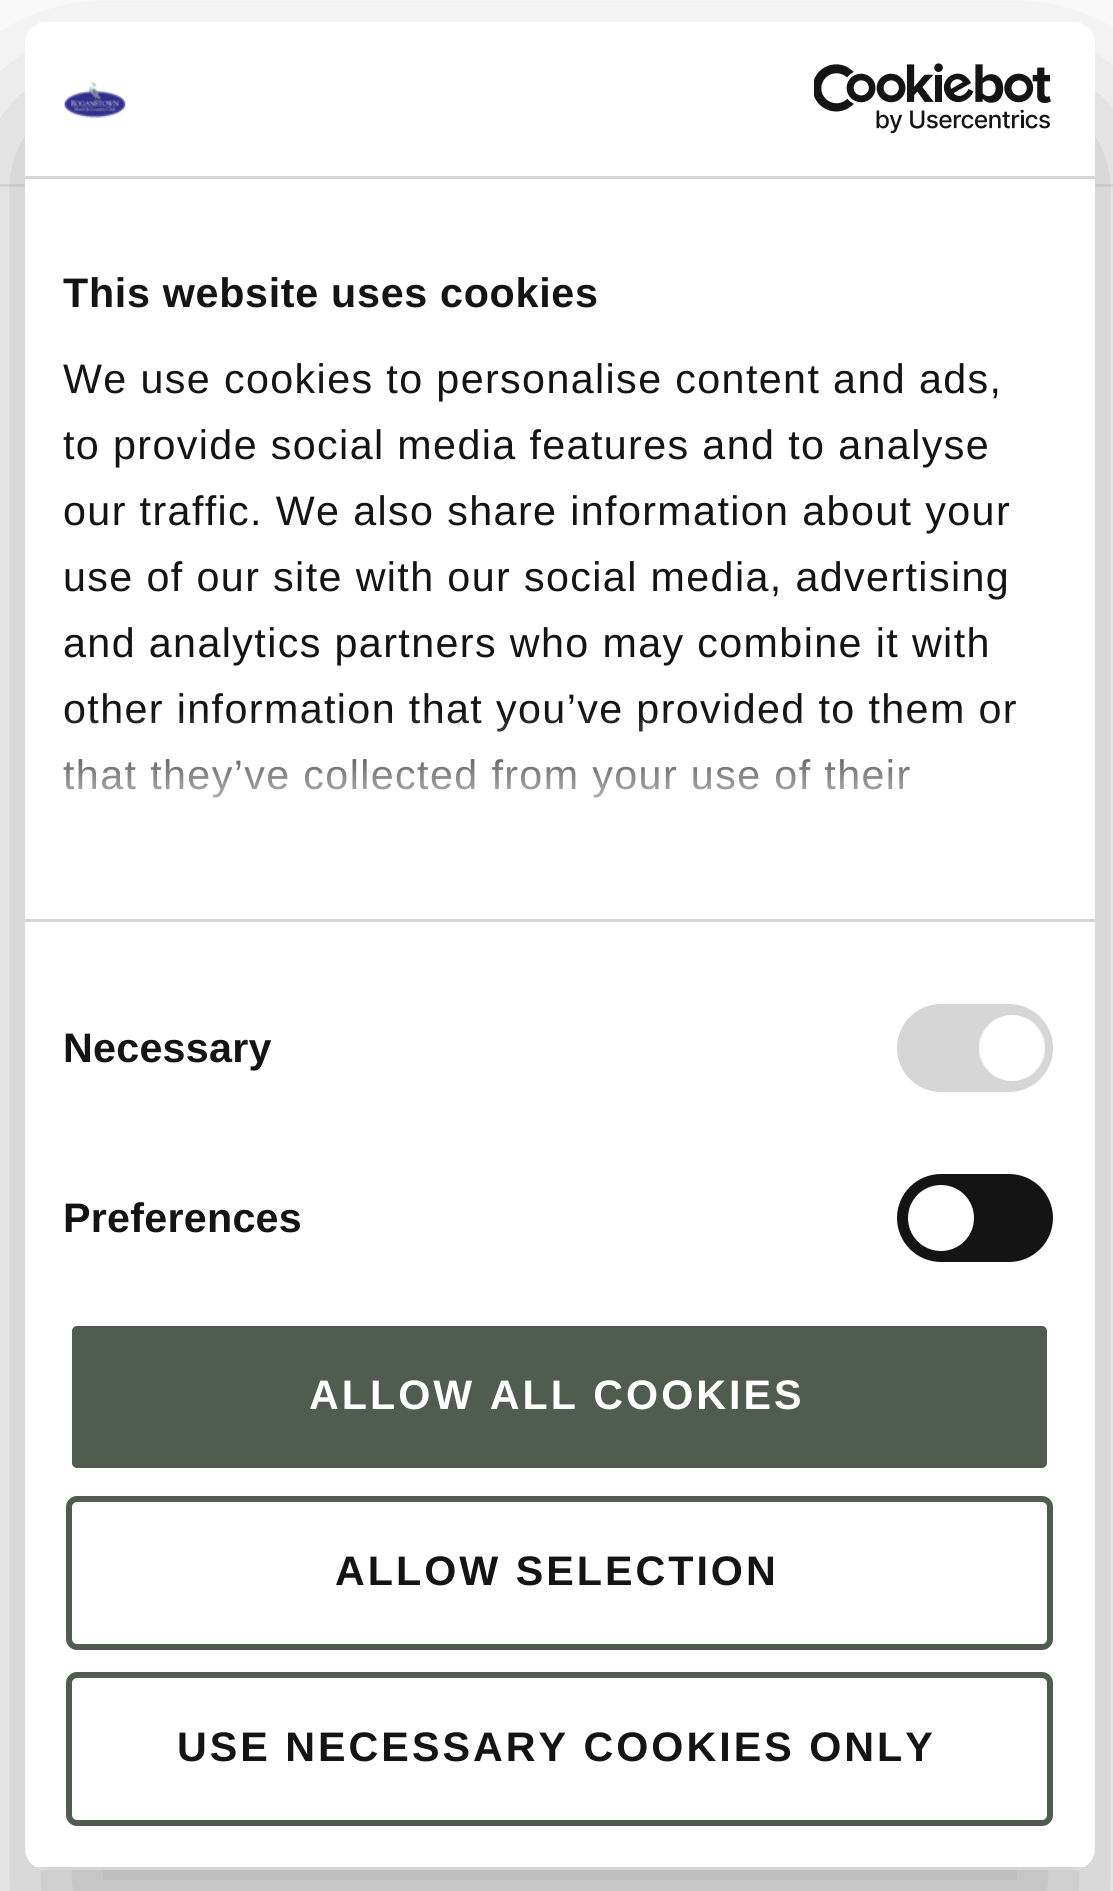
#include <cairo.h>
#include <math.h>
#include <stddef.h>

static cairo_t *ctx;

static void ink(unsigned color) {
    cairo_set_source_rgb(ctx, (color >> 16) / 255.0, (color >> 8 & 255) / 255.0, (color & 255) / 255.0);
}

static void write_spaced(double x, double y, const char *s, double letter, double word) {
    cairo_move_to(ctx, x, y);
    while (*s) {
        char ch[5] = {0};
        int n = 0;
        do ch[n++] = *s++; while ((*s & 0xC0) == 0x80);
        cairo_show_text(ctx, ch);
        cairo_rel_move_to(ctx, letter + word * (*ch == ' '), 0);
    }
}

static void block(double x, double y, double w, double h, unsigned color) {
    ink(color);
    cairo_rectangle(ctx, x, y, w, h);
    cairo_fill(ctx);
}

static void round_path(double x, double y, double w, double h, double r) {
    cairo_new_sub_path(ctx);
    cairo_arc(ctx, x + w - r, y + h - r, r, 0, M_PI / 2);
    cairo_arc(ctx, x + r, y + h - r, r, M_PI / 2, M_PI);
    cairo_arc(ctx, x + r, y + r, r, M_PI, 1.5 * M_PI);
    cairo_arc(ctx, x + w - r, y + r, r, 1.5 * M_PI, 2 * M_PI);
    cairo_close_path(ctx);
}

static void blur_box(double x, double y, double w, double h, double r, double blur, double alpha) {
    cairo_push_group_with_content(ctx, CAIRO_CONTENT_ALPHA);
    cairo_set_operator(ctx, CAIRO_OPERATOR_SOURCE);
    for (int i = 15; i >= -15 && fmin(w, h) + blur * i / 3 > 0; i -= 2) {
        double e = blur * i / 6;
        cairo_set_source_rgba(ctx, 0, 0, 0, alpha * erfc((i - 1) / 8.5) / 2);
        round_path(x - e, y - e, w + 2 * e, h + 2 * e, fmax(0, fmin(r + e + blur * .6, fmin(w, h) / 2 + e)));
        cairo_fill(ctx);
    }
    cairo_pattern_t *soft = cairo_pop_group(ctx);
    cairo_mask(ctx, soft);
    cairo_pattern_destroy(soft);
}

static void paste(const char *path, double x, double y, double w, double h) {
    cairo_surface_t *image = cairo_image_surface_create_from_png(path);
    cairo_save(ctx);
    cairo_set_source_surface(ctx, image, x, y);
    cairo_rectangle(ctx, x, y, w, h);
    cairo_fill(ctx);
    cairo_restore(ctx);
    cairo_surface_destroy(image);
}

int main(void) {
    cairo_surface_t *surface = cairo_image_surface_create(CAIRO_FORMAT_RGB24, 1113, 1891);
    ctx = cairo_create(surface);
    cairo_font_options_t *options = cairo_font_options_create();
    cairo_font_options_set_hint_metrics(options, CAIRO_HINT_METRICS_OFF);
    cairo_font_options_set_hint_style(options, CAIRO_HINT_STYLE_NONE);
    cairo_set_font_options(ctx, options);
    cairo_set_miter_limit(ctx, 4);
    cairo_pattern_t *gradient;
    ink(0xffffff);
    cairo_paint(ctx);
    block(0, 184, 1113, 3, 0xeeedeb);
    cairo_save(ctx);
    cairo_set_fill_rule(ctx, CAIRO_FILL_RULE_EVEN_ODD);
    cairo_new_path(ctx);
    cairo_move_to(ctx, 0, 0);
    cairo_line_to(ctx, 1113, 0);
    cairo_line_to(ctx, 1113, 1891);
    cairo_line_to(ctx, 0, 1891);
    cairo_close_path(ctx);
    cairo_move_to(ctx, 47, 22);
    cairo_line_to(ctx, 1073, 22);
    cairo_curve_to(ctx, 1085, 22, 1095, 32, 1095, 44);
    cairo_line_to(ctx, 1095, 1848);
    cairo_curve_to(ctx, 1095, 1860, 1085, 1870, 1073, 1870);
    cairo_line_to(ctx, 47, 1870);
    cairo_curve_to(ctx, 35, 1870, 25, 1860, 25, 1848);
    cairo_line_to(ctx, 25, 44);
    cairo_curve_to(ctx, 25, 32, 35, 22, 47, 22);
    cairo_close_path(ctx);
    cairo_clip(ctx);
    ink(0x000000);
    blur_box(25, 110, 1070, 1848, 22, 93.5, 0.3);
    cairo_restore(ctx);
    ink(0xffffff);
    round_path(25, 22, 1070, 1848, 22);
    cairo_fill(ctx);
    block(25, 176, 1070, 3, 0xd6d6d6);
    paste("pic1.png", 64, 81, 62, 38);
    paste("pic2.png", 814, 63, 237, 71);
    block(25, 919, 1070, 3, 0xd6d6d6);
    cairo_select_font_face(ctx, "Liberation Sans", CAIRO_FONT_SLANT_NORMAL, CAIRO_FONT_WEIGHT_BOLD);
    cairo_set_font_size(ctx, 41.25);
    ink(0x141414);
    write_spaced(63, 307, "This website uses cookies", 0.7, 0);
    cairo_select_font_face(ctx, "Liberation Sans", CAIRO_FONT_SLANT_NORMAL, CAIRO_FONT_WEIGHT_NORMAL);
    write_spaced(63, 393, "We use cookies to personalise content and ads,", 1.38, 0);
    write_spaced(63, 459, "to provide social media features and to analyse", 1.38, 0);
    write_spaced(63, 525, "our traffic. We also share information about your", 1.38, 0);
    write_spaced(63, 591, "use of our site with our social media, advertising", 1.38, 0);
    write_spaced(63, 657, "and analytics partners who may combine it with", 1.38, 0);
    write_spaced(63, 723, "other information that you’ve provided to them or", 1.38, 0);
    write_spaced(63, 789, "that they’ve collected from your use of their", 1.38, 0);
    gradient = cairo_pattern_create_linear(540, 919, 540, 712);
    cairo_pattern_add_color_stop_rgba(gradient, 0, 1, 1, 1, 1);
    cairo_pattern_add_color_stop_rgba(gradient, 0.5, 1, 1, 1, 0.8);
    cairo_pattern_add_color_stop_rgba(gradient, 1, 1, 1, 1, 0);
    cairo_set_source(ctx, gradient);
    cairo_pattern_destroy(gradient);
    cairo_rectangle(ctx, 63, 715, 947, 83);
    cairo_fill(ctx);
    cairo_select_font_face(ctx, "Liberation Sans", CAIRO_FONT_SLANT_NORMAL, CAIRO_FONT_WEIGHT_BOLD);
    ink(0x141414);
    write_spaced(63, 1062, "Necessary", 0.25, 0);
    ink(0xd6d6d6);
    round_path(897, 1004, 156, 88, 44);
    cairo_fill(ctx);
    ink(0xffffff);
    cairo_arc(ctx, 1012, 1048, 33, 0, 2 * M_PI);
    cairo_fill(ctx);
    ink(0x141414);
    write_spaced(63, 1232, "Preferences", 0.25, 0);
    round_path(897, 1174, 156, 88, 44);
    cairo_fill(ctx);
    ink(0xffffff);
    cairo_arc(ctx, 941, 1218, 33, 0, 2 * M_PI);
    cairo_fill(ctx);
    cairo_save(ctx);
    round_path(25, 22, 1070, 1848, 22);
    cairo_clip(ctx);
    block(36, 1867, 1048, 3, 0xd6d6d6);
    cairo_restore(ctx);
    ink(0x505c50);
    round_path(69, 1323, 981, 148, 8);
    cairo_fill_preserve(ctx);
    ink(0xffffff);
    cairo_set_line_width(ctx, 6);
    cairo_stroke(ctx);
    write_spaced(309, 1409, "ALLOW ALL COOKIES", 3, 0);
    round_path(69, 1499, 981, 148, 8);
    ink(0x505c50);
    cairo_stroke(ctx);
    ink(0x141414);
    write_spaced(335, 1585, "ALLOW SELECTION", 3, 0);
    round_path(69, 1675, 981, 148, 8);
    ink(0x505c50);
    cairo_stroke(ctx);
    ink(0x141414);
    write_spaced(177, 1761, "USE NECESSARY COOKIES ONLY", 3, 0);
    cairo_surface_write_to_png(surface, "screenshot.png");
    cairo_font_options_destroy(options);
    cairo_destroy(ctx);
    cairo_surface_destroy(surface);
    return 0;
}
